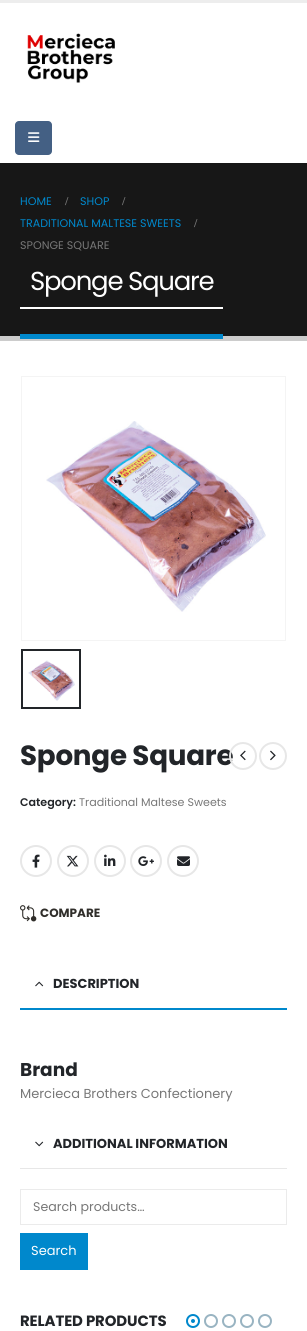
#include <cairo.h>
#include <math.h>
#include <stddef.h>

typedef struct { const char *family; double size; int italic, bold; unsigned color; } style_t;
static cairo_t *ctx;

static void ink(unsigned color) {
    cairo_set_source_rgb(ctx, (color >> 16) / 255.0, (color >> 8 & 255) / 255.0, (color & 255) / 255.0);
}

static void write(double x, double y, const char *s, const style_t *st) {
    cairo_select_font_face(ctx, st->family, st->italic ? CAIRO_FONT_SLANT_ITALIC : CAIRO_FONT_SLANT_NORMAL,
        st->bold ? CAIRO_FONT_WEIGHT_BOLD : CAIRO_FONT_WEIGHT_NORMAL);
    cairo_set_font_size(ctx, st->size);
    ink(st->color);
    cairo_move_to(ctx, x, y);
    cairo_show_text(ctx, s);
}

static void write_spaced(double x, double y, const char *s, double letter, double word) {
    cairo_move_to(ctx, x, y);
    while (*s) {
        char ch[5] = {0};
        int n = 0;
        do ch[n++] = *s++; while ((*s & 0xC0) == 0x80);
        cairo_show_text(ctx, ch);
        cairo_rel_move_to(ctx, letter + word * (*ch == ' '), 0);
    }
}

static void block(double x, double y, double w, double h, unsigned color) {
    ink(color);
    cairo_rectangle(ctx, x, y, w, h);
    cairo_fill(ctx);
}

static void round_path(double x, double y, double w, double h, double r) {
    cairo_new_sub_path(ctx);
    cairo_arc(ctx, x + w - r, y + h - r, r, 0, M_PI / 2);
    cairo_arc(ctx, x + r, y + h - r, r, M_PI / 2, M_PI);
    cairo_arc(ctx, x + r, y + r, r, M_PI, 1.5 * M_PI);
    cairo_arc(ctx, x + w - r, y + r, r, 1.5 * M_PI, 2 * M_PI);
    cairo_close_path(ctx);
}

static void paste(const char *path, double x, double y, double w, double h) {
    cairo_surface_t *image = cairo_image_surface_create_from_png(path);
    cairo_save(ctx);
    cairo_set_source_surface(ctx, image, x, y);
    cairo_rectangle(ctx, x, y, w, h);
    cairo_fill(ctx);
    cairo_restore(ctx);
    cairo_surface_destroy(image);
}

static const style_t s1 = {"Poppins", 11.1, 0, 0, 0x0088cc};
static const style_t s2 = {"Liberation Serif", 12, 0, 1, 0x777777};
static const style_t s3 = {"Poppins", 11.1, 0, 0, 0x777777};
static const style_t s4 = {"Poppins SemiBold", 11.1, 0, 0, 0x222529};
static const style_t s5 = {"Poppins", 12, 0, 1, 0x302e2a};
static const style_t s6 = {"Poppins", 13, 0, 1, 0x222529};
static const style_t s7 = {"Poppins", 18.5, 0, 1, 0x222529};
static const style_t s8 = {"Poppins", 13, 0, 0, 0x777777};
static const style_t s9 = {"Poppins", 12.6, 0, 0, 0x777777};
static const style_t s10 = {"Poppins", 13, 0, 0, 0xffffff};

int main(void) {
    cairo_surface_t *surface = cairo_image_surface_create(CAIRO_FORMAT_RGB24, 307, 1331);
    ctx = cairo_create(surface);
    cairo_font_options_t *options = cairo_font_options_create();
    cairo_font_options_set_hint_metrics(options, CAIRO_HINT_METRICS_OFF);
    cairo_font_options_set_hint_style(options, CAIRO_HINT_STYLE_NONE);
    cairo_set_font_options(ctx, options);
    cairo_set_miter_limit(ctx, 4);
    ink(0xffffff);
    cairo_paint(ctx);
    block(0, 0, 307, 3, 0xededed);
    paste("pic1.png", 27, 33, 88, 50);
    ink(0x446084);
    round_path(15, 121, 37, 34, 4);
    cairo_fill(ctx);
    paste("pic2.png", 28, 132, 12, 10);
    block(0, 163, 307, 173, 0x171717);
    block(0, 336, 307, 5, 0xcccccc);
    write(20, 205, "HOME", &s1);
    write(65, 205, "/", &s2);
    write(80, 205, "SHOP", &s1);
    write(122, 205, "/", &s2);
    write(20, 227, "TRADITIONAL MALTESE SWEETS", &s1);
    write(194, 227, "/", &s2);
    write(20, 249, "SPONGE SQUARE", &s3);
    block(20, 307, 203, 2, 0xffffff);
    cairo_set_font_size(ctx, 26);
    write_spaced(30, 290, "Sponge Square", -1.25, 0);
    block(20, 334, 203, 5, 0x0088cc);
    cairo_rectangle(ctx, 21.5, 376.5, 264, 264);
    ink(0xf4f4f4);
    cairo_set_line_width(ctx, 1);
    cairo_stroke(ctx);
    paste("pic3.png", 46, 421, 220, 191);
    cairo_rectangle(ctx, 22, 650, 58, 58);
    ink(0x222529);
    cairo_set_line_width(ctx, 2);
    cairo_stroke(ctx);
    paste("pic4.png", 28, 660, 47, 41);
    cairo_select_font_face(ctx, "Poppins", CAIRO_FONT_SLANT_NORMAL, CAIRO_FONT_WEIGHT_BOLD);
    cairo_set_font_size(ctx, 27.75);
    write_spaced(20, 765, "Sponge Square", -0.25, 0);
    cairo_new_path(ctx);
    cairo_arc(ctx, 243, 756, 13, 0, 2 * M_PI);
    ink(0xe7e7e7);
    cairo_stroke(ctx);
    paste("pic5.png", 240, 750, 6, 11);
    cairo_arc(ctx, 273, 756, 13, 0, 2 * M_PI);
    cairo_stroke(ctx);
    paste("pic6.png", 270, 750, 6, 11);
    write(20, 806, "Category:", &s4);
    write(79, 806, "Traditional Maltese Sweets", &s3);
    cairo_new_path(ctx);
    cairo_arc(ctx, 36, 861, 15, 0, 2 * M_PI);
    ink(0xe7e7e7);
    cairo_stroke(ctx);
    paste("pic7.png", 32, 854, 8, 14);
    cairo_arc(ctx, 73, 861, 15, 0, 2 * M_PI);
    cairo_stroke(ctx);
    paste("pic8.png", 66, 855, 13, 12);
    cairo_arc(ctx, 110, 861, 15, 0, 2 * M_PI);
    cairo_stroke(ctx);
    paste("pic9.png", 104, 854, 12, 12);
    cairo_arc(ctx, 146, 861, 15, 0, 2 * M_PI);
    cairo_stroke(ctx);
    paste("pic10.png", 138, 856, 16, 10);
    cairo_arc(ctx, 183, 861, 15, 0, 2 * M_PI);
    cairo_stroke(ctx);
    paste("pic11.png", 177, 856, 13, 10);
    paste("pic12.png", 20, 905, 17, 17);
    write(40, 917, "COMPARE", &s5);
    block(20, 1008, 267, 2, 0x0088cc);
    paste("pic13.png", 35, 981, 9, 6);
    write(53, 988, "DESCRIPTION", &s6);
    write(20, 1076, "Brand", &s7);
    write(20, 1098, "Mercieca Brothers Confectionery", &s8);
    block(20, 1168, 267, 1, 0xe7e7e7);
    paste("pic14.png", 35, 1141, 9, 6);
    write(53, 1148, "ADDITIONAL INFORMATION", &s6);
    cairo_rectangle(ctx, 20.5, 1189.5, 266, 35);
    ink(0xebebeb);
    cairo_set_line_width(ctx, 1);
    cairo_stroke(ctx);
    write(33, 1211, "Search products…", &s9);
    block(20, 1233, 68, 37, 0x0088cc);
    write(31, 1255, "Search", &s10);
    cairo_select_font_face(ctx, "Poppins", CAIRO_FONT_SLANT_NORMAL, CAIRO_FONT_WEIGHT_BOLD);
    cairo_set_font_size(ctx, 14.9);
    ink(0x222529);
    write_spaced(20, 1326, "RELATED PRODUCTS", -0.1, 0);
    cairo_new_path(ctx);
    cairo_arc(ctx, 193, 1321, 6, 0, 2 * M_PI);
    ink(0x0088cc);
    cairo_set_line_width(ctx, 2);
    cairo_stroke(ctx);
    cairo_arc(ctx, 193, 1321, 2, 0, 2 * M_PI);
    cairo_fill(ctx);
    cairo_arc(ctx, 211, 1321, 6, 0, 2 * M_PI);
    ink(0x99b4c2);
    cairo_stroke(ctx);
    cairo_arc(ctx, 229, 1321, 6, 0, 2 * M_PI);
    cairo_stroke(ctx);
    cairo_arc(ctx, 247, 1321, 6, 0, 2 * M_PI);
    cairo_stroke(ctx);
    cairo_arc(ctx, 265, 1321, 6, 0, 2 * M_PI);
    cairo_stroke(ctx);
    cairo_surface_write_to_png(surface, "screenshot.png");
    cairo_font_options_destroy(options);
    cairo_destroy(ctx);
    cairo_surface_destroy(surface);
    return 0;
}
